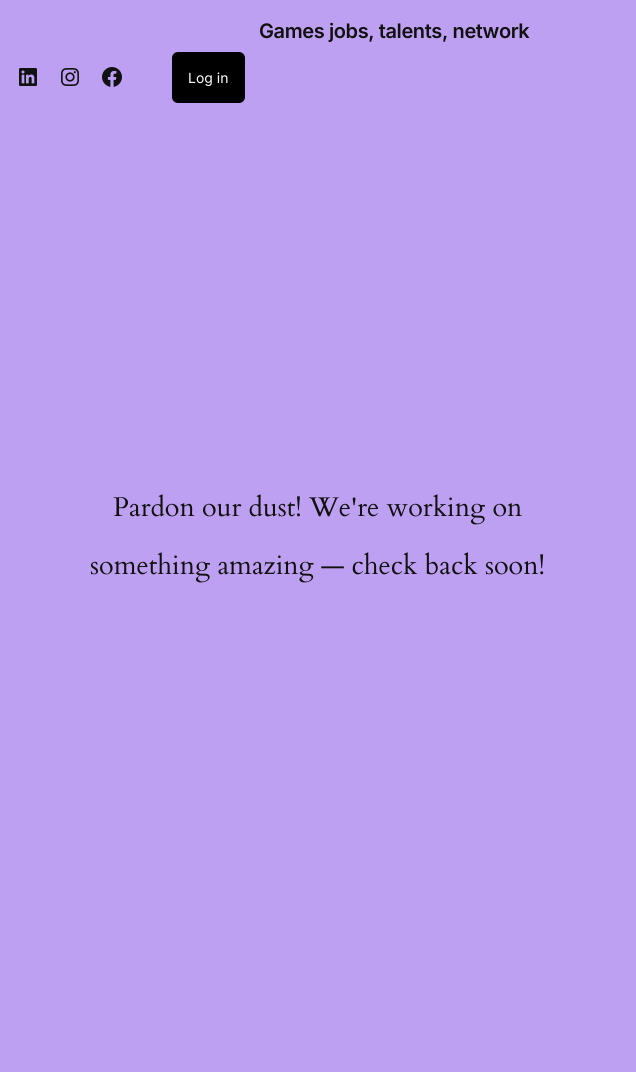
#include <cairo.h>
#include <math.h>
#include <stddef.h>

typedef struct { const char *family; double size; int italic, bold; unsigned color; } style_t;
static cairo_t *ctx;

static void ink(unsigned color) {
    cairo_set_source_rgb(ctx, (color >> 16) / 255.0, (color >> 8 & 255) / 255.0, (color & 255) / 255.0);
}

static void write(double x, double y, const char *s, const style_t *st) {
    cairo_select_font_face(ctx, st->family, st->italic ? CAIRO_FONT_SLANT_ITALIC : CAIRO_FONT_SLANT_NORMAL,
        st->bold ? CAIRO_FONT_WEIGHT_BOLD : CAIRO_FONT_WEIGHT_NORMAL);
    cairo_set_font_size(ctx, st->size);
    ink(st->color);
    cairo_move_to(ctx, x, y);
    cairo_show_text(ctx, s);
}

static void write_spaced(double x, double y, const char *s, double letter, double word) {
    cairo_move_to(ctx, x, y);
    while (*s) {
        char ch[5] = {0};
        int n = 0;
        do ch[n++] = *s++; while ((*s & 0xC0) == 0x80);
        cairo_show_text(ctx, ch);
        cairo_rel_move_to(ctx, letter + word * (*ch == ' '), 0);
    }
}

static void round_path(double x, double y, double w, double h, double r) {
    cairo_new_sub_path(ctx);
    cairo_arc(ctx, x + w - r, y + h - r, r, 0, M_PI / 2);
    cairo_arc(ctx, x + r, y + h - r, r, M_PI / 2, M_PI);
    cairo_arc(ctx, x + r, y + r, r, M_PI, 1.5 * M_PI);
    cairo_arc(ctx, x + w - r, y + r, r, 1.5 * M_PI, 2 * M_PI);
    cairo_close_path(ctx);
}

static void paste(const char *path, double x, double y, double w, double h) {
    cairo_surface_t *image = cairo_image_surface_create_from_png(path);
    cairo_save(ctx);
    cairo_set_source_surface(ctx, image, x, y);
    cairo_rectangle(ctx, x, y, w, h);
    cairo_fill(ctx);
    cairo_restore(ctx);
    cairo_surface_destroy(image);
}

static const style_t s1 = {"Inter", 14, 0, 0, 0xffffff};
static const style_t s2 = {"Cardo", 27, 0, 0, 0x111111};

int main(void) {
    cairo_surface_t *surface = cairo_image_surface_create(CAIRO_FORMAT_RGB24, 636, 1072);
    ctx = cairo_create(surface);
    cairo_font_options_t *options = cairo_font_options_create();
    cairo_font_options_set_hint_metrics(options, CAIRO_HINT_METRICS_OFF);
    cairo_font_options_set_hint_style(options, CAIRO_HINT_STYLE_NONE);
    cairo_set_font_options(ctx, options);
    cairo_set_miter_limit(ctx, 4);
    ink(0xbea0f2);
    cairo_paint(ctx);
    cairo_select_font_face(ctx, "Inter SemiBold", CAIRO_FONT_SLANT_NORMAL, CAIRO_FONT_WEIGHT_NORMAL);
    cairo_set_font_size(ctx, 20);
    ink(0x111111);
    write_spaced(259, 38, "Games jobs, talents, network", -0.4, 0);
    paste("pic1.png", 19, 68, 18, 18);
    paste("pic2.png", 61, 68, 18, 18);
    paste("pic3.png", 102, 67, 20, 20);
    ink(0x000000);
    round_path(172, 52, 73, 51, 6);
    cairo_fill(ctx);
    write(188, 83, "Log in", &s1);
    write(113, 516, "Pardon our dust! We're working on", &s2);
    write(90, 574, "something amazing — check back soon!", &s2);
    cairo_surface_write_to_png(surface, "screenshot.png");
    cairo_font_options_destroy(options);
    cairo_destroy(ctx);
    cairo_surface_destroy(surface);
    return 0;
}
